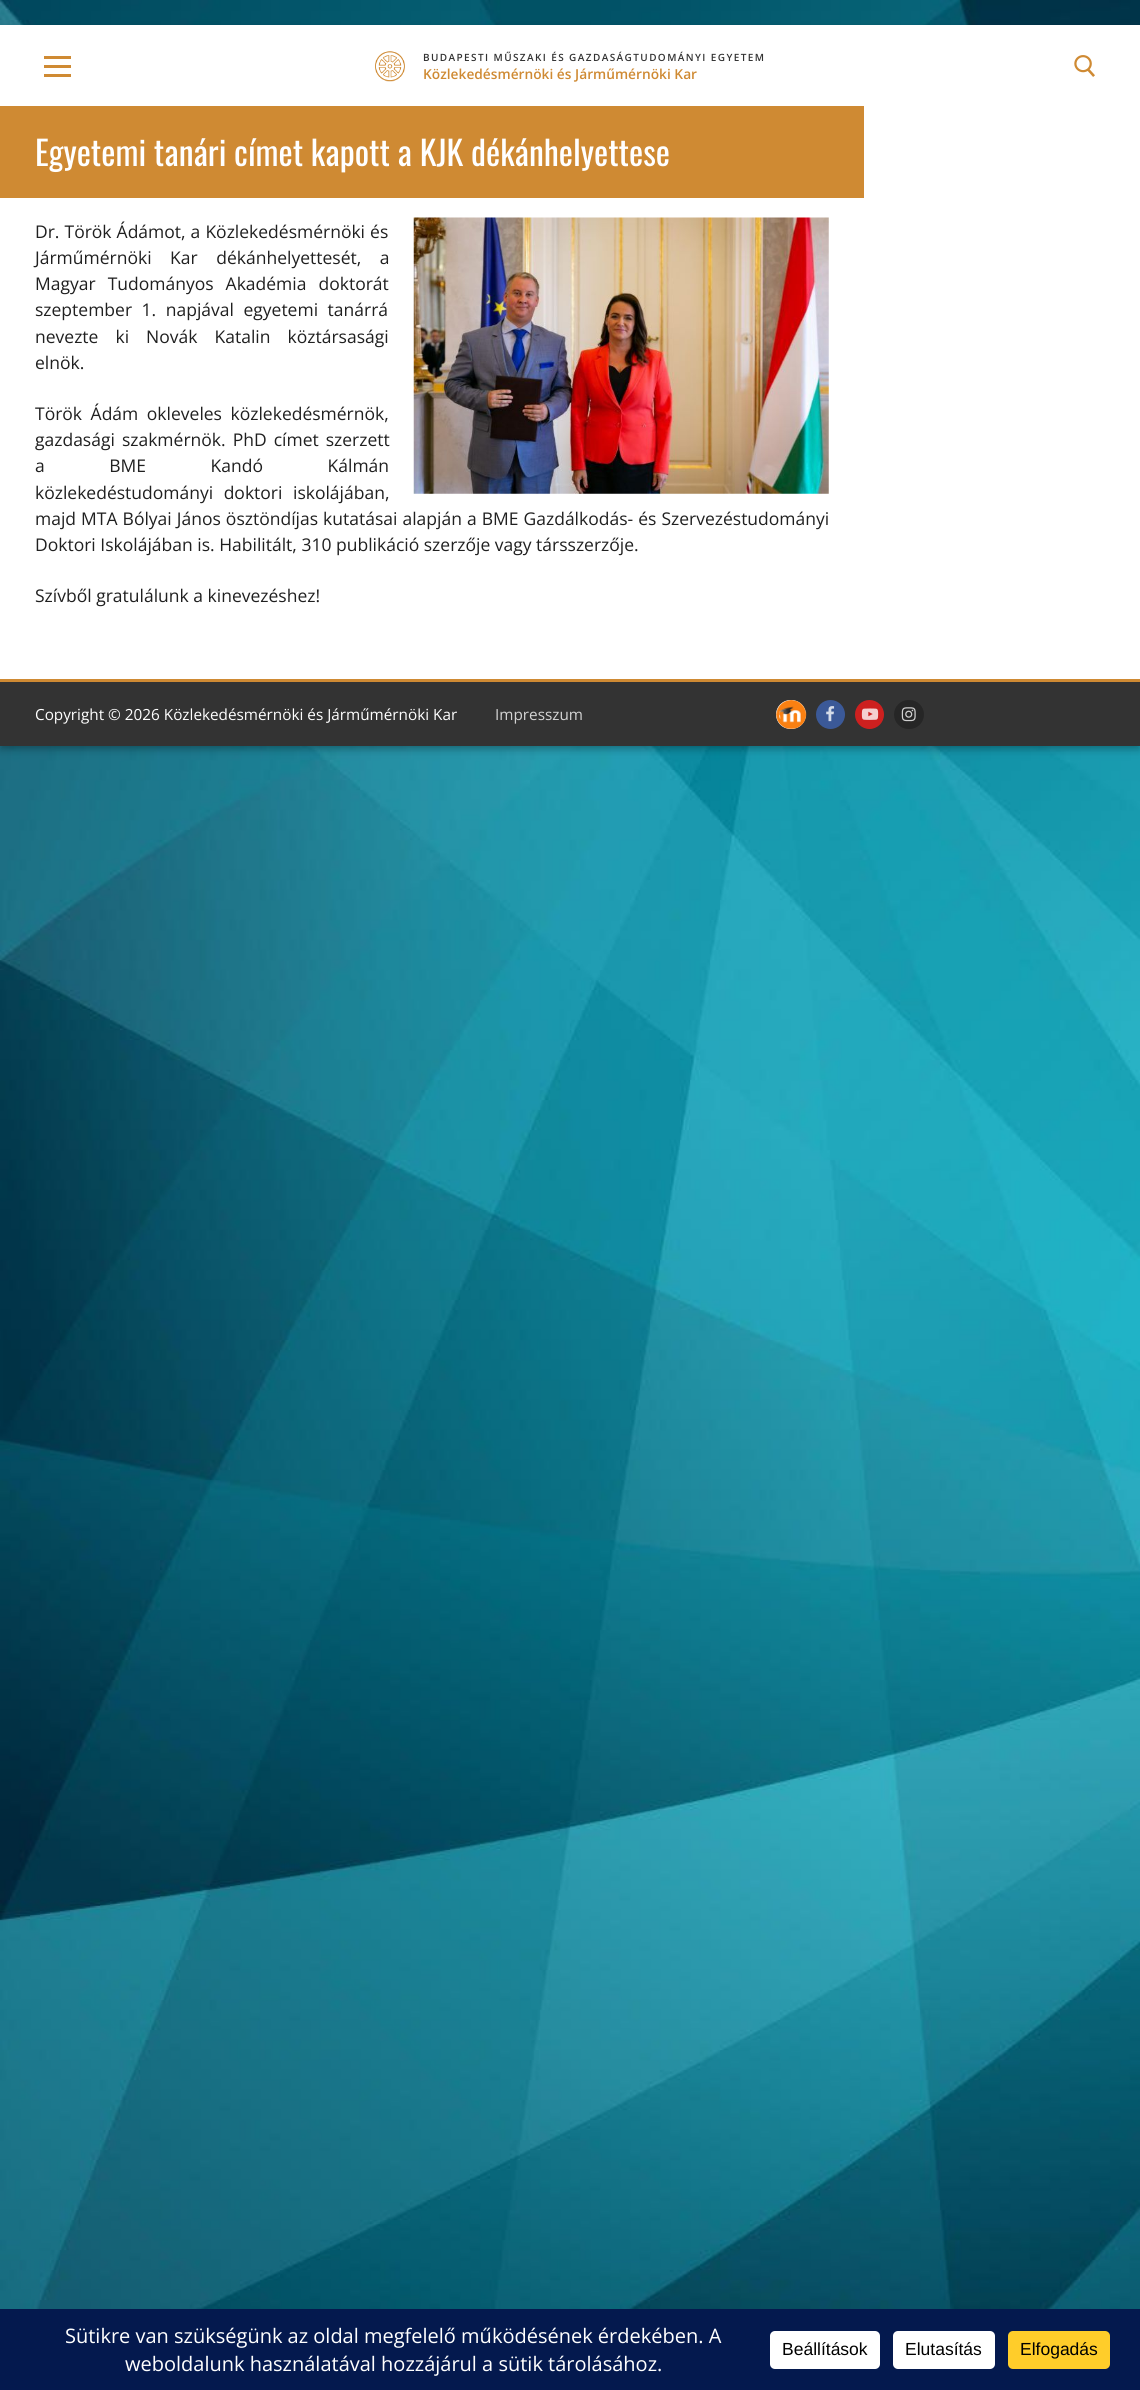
#include <cairo.h>
#include <math.h>
#include <stddef.h>

typedef struct { const char *family; double size; int italic, bold; unsigned color; } style_t;
static cairo_t *ctx;

static void ink(unsigned color) {
    cairo_set_source_rgb(ctx, (color >> 16) / 255.0, (color >> 8 & 255) / 255.0, (color & 255) / 255.0);
}

static void write(double x, double y, const char *s, const style_t *st) {
    cairo_select_font_face(ctx, st->family, st->italic ? CAIRO_FONT_SLANT_ITALIC : CAIRO_FONT_SLANT_NORMAL,
        st->bold ? CAIRO_FONT_WEIGHT_BOLD : CAIRO_FONT_WEIGHT_NORMAL);
    cairo_set_font_size(ctx, st->size);
    ink(st->color);
    cairo_move_to(ctx, x, y);
    cairo_show_text(ctx, s);
}

static void write_spaced(double x, double y, const char *s, double letter, double word) {
    cairo_move_to(ctx, x, y);
    while (*s) {
        char ch[5] = {0};
        int n = 0;
        do ch[n++] = *s++; while ((*s & 0xC0) == 0x80);
        cairo_show_text(ctx, ch);
        cairo_rel_move_to(ctx, letter + word * (*ch == ' '), 0);
    }
}

static void block(double x, double y, double w, double h, unsigned color) {
    ink(color);
    cairo_rectangle(ctx, x, y, w, h);
    cairo_fill(ctx);
}

static void round_path(double x, double y, double w, double h, double r) {
    cairo_new_sub_path(ctx);
    cairo_arc(ctx, x + w - r, y + h - r, r, 0, M_PI / 2);
    cairo_arc(ctx, x + r, y + h - r, r, M_PI / 2, M_PI);
    cairo_arc(ctx, x + r, y + r, r, M_PI, 1.5 * M_PI);
    cairo_arc(ctx, x + w - r, y + r, r, 1.5 * M_PI, 2 * M_PI);
    cairo_close_path(ctx);
}

static void blur_box(double x, double y, double w, double h, double r, double blur, double alpha) {
    cairo_push_group_with_content(ctx, CAIRO_CONTENT_ALPHA);
    cairo_set_operator(ctx, CAIRO_OPERATOR_SOURCE);
    for (int i = 15; i >= -15 && fmin(w, h) + blur * i / 3 > 0; i -= 2) {
        double e = blur * i / 6;
        cairo_set_source_rgba(ctx, 0, 0, 0, alpha * erfc((i - 1) / 8.5) / 2);
        round_path(x - e, y - e, w + 2 * e, h + 2 * e, fmax(0, fmin(r + e + blur * .6, fmin(w, h) / 2 + e)));
        cairo_fill(ctx);
    }
    cairo_pattern_t *soft = cairo_pop_group(ctx);
    cairo_mask(ctx, soft);
    cairo_pattern_destroy(soft);
}

static void paste(const char *path, double x, double y, double w, double h) {
    cairo_surface_t *image = cairo_image_surface_create_from_png(path);
    cairo_save(ctx);
    cairo_set_source_surface(ctx, image, x, y);
    cairo_rectangle(ctx, x, y, w, h);
    cairo_fill(ctx);
    cairo_restore(ctx);
    cairo_surface_destroy(image);
}

static const style_t s1 = {"Open Sans SemiBold", 13.75, 0, 0, 0xcf8a33};
static const style_t s2 = {"Oswald", 33.75, 0, 0, 0xffffff};
static const style_t s3 = {"Open Sans", 17.5, 0, 0, 0x202020};
static const style_t s4 = {"Open Sans", 15.3, 0, 0, 0xffffff};
static const style_t s5 = {"Open Sans", 15.3, 0, 0, 0xd4d4d4};
static const style_t s6 = {"Open Sans", 20, 0, 0, 0xffffff};
static const style_t s7 = {"Liberation Sans", 17.5, 0, 0, 0x000000};

int main(void) {
    cairo_surface_t *surface = cairo_image_surface_create(CAIRO_FORMAT_RGB24, 1140, 2390);
    ctx = cairo_create(surface);
    cairo_font_options_t *options = cairo_font_options_create();
    cairo_font_options_set_hint_metrics(options, CAIRO_HINT_METRICS_OFF);
    cairo_font_options_set_hint_style(options, CAIRO_HINT_STYLE_NONE);
    cairo_set_font_options(ctx, options);
    cairo_set_miter_limit(ctx, 4);
    ink(0xffffff);
    cairo_paint(ctx);
    paste("pic1.png", 0, 0, 1140, 2309);
    ink(0x000000);
    blur_box(0, 29, 1140, 721, 0, 4, 0.23);
    blur_box(5, 34, 1130, 711, 0, 4, 0.16);
    block(0, 25, 1140, 654, 0xffffff);
    block(44, 65, 27, 3, 0xcf8a33);
    block(44, 56, 27, 3, 0xcf8a33);
    block(44, 74, 27, 3, 0xcf8a33);
    paste("pic2.png", 375, 51, 30, 31);
    cairo_select_font_face(ctx, "Open Sans SemiBold", CAIRO_FONT_SLANT_NORMAL, CAIRO_FONT_WEIGHT_NORMAL);
    cairo_set_font_size(ctx, 10);
    ink(0x333333);
    write_spaced(423, 61, "BUDAPESTI MŰSZAKI ÉS GAZDASÁGTUDOMÁNYI EGYETEM", 1.4, 0);
    write(423, 79, "Közlekedésmérnöki és Járműmérnöki Kar", &s1);
    paste("pic3.png", 1074, 55, 21, 22);
    block(0, 106, 864, 92, 0xcf8a33);
    write(35, 166, "Egyetemi tanári címet kapott a KJK dékánhelyettese", &s2);
    cairo_select_font_face(ctx, "Open Sans", CAIRO_FONT_SLANT_NORMAL, CAIRO_FONT_WEIGHT_NORMAL);
    cairo_set_font_size(ctx, 17.5);
    ink(0x202020);
    write_spaced(35, 238, "Dr. Török Ádámot, a Közlekedésmérnöki és", 0, 0.5);
    paste("pic4.png", 413, 217, 416, 277);
    write_spaced(35, 264, "Járműmérnöki Kar dékánhelyettesét, a", 0, 14);
    write_spaced(35, 290, "Magyar Tudományos Akadémia doktorát", 0, 7.5);
    write_spaced(35, 316, "szeptember 1. napjával egyetemi tanárrá", 0, 5);
    write_spaced(35, 343, "nevezte ki Novák Katalin köztársasági", 0, 12.5);
    write(35, 369, "elnök.", &s3);
    write_spaced(35, 420, "Török Ádám okleveles közlekedésmérnök,", 0, 4);
    write_spaced(35, 446, "gazdasági szakmérnök. PhD címet szerzett", 0, 2.5);
    write_spaced(35, 472, "a BME Kandó Kálmán", 0, 60);
    write_spaced(35, 499, "közlekedéstudományi doktori iskolájában,", 0, 6);
    write_spaced(35, 525, "majd MTA Bólyai János ösztöndíjas kutatásai alapján a BME Gazdálkodás- és Szervezéstudományi", 0, 0.5);
    write(35, 551, "Doktori Iskolájában is. Habilitált, 310 publikáció szerzője vagy társszerzője.", &s3);
    write(35, 602, "Szívből gratulálunk a kinevezéshez!", &s3);
    block(0, 682, 1140, 64, 0x333333);
    block(0, 679, 1140, 3, 0xcf8a33);
    write(35, 720, "Copyright © 2026 Közlekedésmérnöki és Járműmérnöki Kar", &s4);
    write(495, 720, "Impresszum", &s5);
    ink(0xffffff);
    round_path(776, 700, 30, 29, 14.5);
    cairo_fill(ctx);
    paste("pic5.png", 776, 700, 31, 29);
    ink(0x3b5998);
    cairo_arc(ctx, 830.5, 714.5, 14.5, 0, 2 * M_PI);
    cairo_fill(ctx);
    paste("pic6.png", 826, 706, 9, 16);
    ink(0xcd201f);
    cairo_arc(ctx, 869.5, 714.5, 14.5, 0, 2 * M_PI);
    cairo_fill(ctx);
    paste("pic7.png", 861, 708, 18, 12);
    ink(0x262626);
    round_path(894, 700, 30, 29, 14.5);
    cairo_fill(ctx);
    paste("pic8.png", 901, 707, 15, 15);
    block(0, 2309, 1140, 81, 0x04194e);
    write(65, 2343, "Sütikre van szükségünk az oldal megfelelő működésének érdekében. A", &s6);
    write(125, 2371, "weboldalunk használatával hozzájárul a sütik tárolásához.", &s6);
    round_path(770, 2331, 110, 38, 5);
    cairo_fill(ctx);
    write(782, 2355, "Beállítások", &s7);
    ink(0xffffff);
    round_path(893, 2331, 102, 38, 5);
    cairo_fill(ctx);
    write(905, 2355, "Elutasítás", &s7);
    ink(0xffcd2a);
    round_path(1008, 2331, 102, 38, 5);
    cairo_fill(ctx);
    write(1020, 2355, "Elfogadás", &s7);
    cairo_surface_write_to_png(surface, "screenshot.png");
    cairo_font_options_destroy(options);
    cairo_destroy(ctx);
    cairo_surface_destroy(surface);
    return 0;
}
